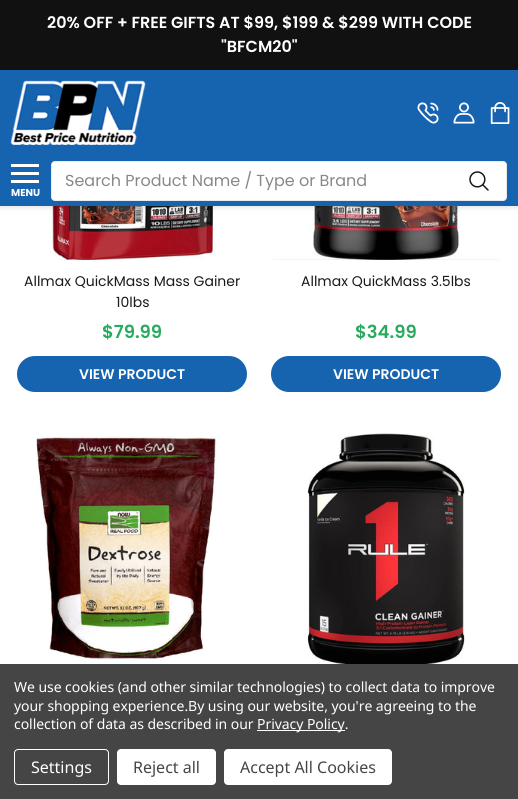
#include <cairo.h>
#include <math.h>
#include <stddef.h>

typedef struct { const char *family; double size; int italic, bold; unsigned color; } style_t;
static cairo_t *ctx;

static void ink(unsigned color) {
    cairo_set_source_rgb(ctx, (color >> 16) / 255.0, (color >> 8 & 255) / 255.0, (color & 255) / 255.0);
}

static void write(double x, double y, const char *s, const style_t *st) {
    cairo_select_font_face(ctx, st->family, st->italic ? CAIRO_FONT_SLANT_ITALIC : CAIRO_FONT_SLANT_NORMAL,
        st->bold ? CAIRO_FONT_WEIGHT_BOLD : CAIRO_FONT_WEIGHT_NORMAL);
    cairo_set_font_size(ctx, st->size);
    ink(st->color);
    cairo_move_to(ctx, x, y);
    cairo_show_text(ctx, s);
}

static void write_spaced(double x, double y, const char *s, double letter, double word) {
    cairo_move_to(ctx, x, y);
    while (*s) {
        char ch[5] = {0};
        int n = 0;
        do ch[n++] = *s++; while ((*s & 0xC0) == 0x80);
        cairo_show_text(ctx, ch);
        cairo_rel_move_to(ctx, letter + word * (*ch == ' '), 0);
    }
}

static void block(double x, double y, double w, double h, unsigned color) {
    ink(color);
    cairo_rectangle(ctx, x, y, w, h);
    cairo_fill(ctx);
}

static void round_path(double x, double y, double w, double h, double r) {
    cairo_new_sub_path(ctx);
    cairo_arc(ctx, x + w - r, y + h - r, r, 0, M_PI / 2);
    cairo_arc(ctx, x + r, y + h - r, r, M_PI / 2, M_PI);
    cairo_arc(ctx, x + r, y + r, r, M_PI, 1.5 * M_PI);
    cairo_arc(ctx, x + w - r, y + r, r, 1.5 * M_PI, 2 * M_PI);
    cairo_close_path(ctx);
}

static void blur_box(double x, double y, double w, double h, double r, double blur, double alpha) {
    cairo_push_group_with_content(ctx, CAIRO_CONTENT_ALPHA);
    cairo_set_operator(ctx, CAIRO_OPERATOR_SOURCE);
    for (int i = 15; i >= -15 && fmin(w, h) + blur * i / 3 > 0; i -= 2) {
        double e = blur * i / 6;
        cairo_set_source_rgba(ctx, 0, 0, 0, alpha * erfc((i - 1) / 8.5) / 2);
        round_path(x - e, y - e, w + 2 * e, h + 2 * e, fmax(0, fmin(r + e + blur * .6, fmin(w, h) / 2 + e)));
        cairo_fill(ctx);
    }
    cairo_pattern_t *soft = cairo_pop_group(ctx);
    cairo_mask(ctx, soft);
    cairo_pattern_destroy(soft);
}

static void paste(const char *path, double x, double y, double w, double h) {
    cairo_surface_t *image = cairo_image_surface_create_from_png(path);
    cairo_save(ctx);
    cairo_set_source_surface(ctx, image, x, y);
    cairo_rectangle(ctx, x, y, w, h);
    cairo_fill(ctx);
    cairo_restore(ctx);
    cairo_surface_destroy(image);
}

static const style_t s1 = {"Poppins SemiBold", 16, 0, 0, 0xffffff};
static const style_t s2 = {"Poppins", 16, 0, 0, 0x888888};
static const style_t s3 = {"Poppins", 10, 0, 1, 0xffffff};
static const style_t s4 = {"Poppins", 14, 0, 0, 0x1a1a1a};
static const style_t s5 = {"Poppins SemiBold", 18, 0, 0, 0x28aa60};
static const style_t s6 = {"Poppins SemiBold", 14, 0, 0, 0xffffff};
static const style_t s7 = {"Noto Sans", 16, 0, 0, 0xffffff};
static const style_t s8 = {"Noto Sans", 16, 0, 0, 0x454545};

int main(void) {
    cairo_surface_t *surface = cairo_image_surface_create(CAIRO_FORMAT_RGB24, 518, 799);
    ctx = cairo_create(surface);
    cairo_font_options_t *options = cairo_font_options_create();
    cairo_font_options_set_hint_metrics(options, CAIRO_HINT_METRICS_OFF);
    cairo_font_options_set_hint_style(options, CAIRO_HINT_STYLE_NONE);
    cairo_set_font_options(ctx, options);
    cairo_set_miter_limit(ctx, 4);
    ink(0xffffff);
    cairo_paint(ctx);
    paste("pic6.png", 48, 206, 169, 54);
    paste("pic7.png", 272, 206, 228, 54);
    ink(0x000000);
    blur_box(0, 2, 518, 206, 0, 2.5, 0.1);
    block(0, 70, 518, 136, 0x1663b0);
    block(0, 0, 518, 70, 0x111111);
    write(47, 28, "20% OFF + FREE GIFTS AT $99, $199 & $299 WITH CODE", &s1);
    write(221, 52, "\"BFCM20\"", &s1);
    paste("pic1.png", 10, 80, 136, 65);
    paste("pic2.png", 417, 102, 22, 22);
    paste("pic3.png", 453, 102, 22, 22);
    paste("pic4.png", 490, 102, 20, 22);
    round_path(51.5, 161.5, 455, 39, 3.5);
    cairo_fill_preserve(ctx);
    ink(0xeaeaea);
    cairo_set_line_width(ctx, 1);
    cairo_stroke(ctx);
    write(65, 186, "Search Product Name / Type or Brand", &s2);
    paste("pic5.png", 469, 171, 20, 20);
    block(11, 172, 28, 3, 0xffffff);
    block(11, 164, 28, 3, 0xffffff);
    block(11, 180, 28, 3, 0xffffff);
    write(11, 196, "MENU", &s3);
    write(24, 286, "Allmax QuickMass Mass Gainer", &s4);
    write(116, 307, "10lbs", &s4);
    write(102, 338, "$79.99", &s5);
    ink(0x1663b0);
    round_path(17, 356, 230, 36, 18);
    cairo_fill(ctx);
    write(79, 379, "VIEW PRODUCT", &s6);
    write(301, 286, "Allmax QuickMass 3.5lbs", &s4);
    write(355, 338, "$34.99", &s5);
    ink(0x1663b0);
    round_path(271, 356, 230, 36, 18);
    cairo_fill(ctx);
    write(333, 379, "VIEW PRODUCT", &s6);
    paste("pic8.png", 36, 436, 181, 227);
    paste("pic9.png", 307, 433, 158, 231);
    block(0, 664, 518, 135, 0x454545);
    cairo_select_font_face(ctx, "Noto Sans", CAIRO_FONT_SLANT_NORMAL, CAIRO_FONT_WEIGHT_NORMAL);
    ink(0xffffff);
    write_spaced(14, 692, "We use cookies (and other similar technologies) to collect data to improve", -0.05, 0);
    write_spaced(14, 711, "your shopping experience.By using our website, you're agreeing to the", -0.05, 0);
    write_spaced(14, 729, "collection of data as described in our", -0.05, 0);
    block(257, 730, 88, 1, 0xffffff);
    write_spaced(257, 729, "Privacy Policy.", -0.05, 0);
    round_path(14.5, 749.5, 94, 35, 3.5);
    cairo_stroke(ctx);
    write(31, 773, "Settings", &s7);
    round_path(117, 749, 99, 36, 4);
    cairo_fill(ctx);
    write(133, 773, "Reject all", &s8);
    ink(0xffffff);
    round_path(224, 749, 168, 36, 4);
    cairo_fill(ctx);
    write(240, 773, "Accept All Cookies", &s8);
    cairo_surface_write_to_png(surface, "screenshot.png");
    cairo_font_options_destroy(options);
    cairo_destroy(ctx);
    cairo_surface_destroy(surface);
    return 0;
}
